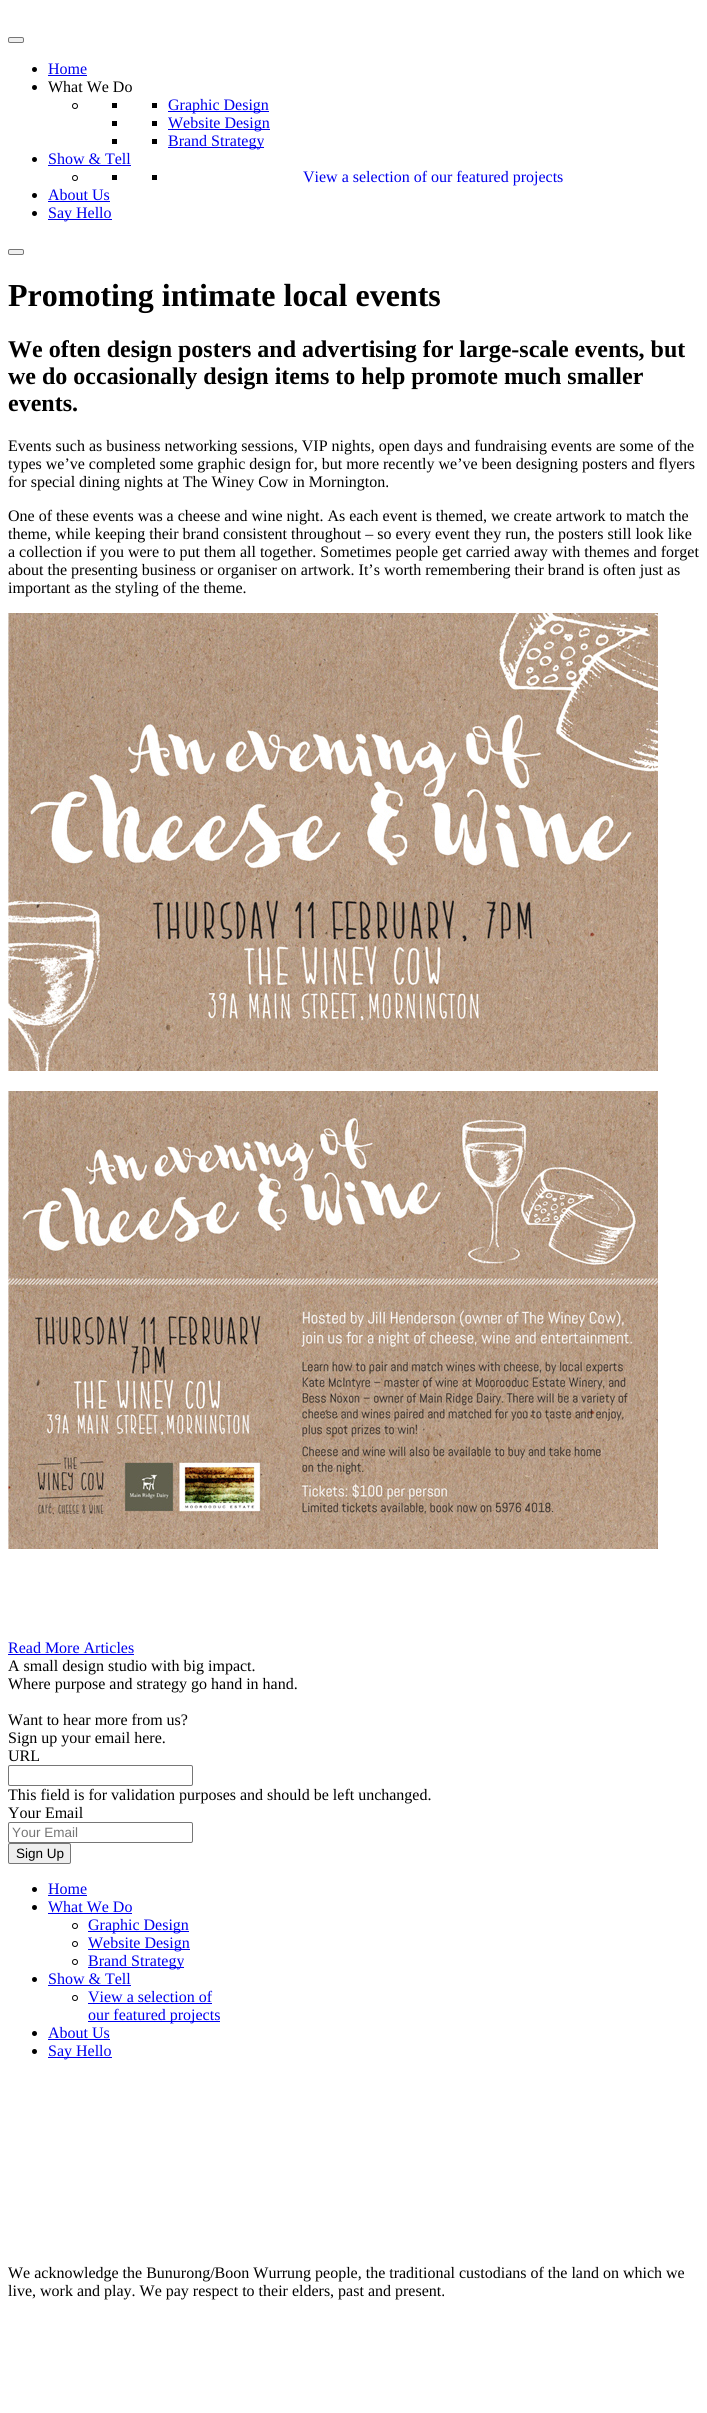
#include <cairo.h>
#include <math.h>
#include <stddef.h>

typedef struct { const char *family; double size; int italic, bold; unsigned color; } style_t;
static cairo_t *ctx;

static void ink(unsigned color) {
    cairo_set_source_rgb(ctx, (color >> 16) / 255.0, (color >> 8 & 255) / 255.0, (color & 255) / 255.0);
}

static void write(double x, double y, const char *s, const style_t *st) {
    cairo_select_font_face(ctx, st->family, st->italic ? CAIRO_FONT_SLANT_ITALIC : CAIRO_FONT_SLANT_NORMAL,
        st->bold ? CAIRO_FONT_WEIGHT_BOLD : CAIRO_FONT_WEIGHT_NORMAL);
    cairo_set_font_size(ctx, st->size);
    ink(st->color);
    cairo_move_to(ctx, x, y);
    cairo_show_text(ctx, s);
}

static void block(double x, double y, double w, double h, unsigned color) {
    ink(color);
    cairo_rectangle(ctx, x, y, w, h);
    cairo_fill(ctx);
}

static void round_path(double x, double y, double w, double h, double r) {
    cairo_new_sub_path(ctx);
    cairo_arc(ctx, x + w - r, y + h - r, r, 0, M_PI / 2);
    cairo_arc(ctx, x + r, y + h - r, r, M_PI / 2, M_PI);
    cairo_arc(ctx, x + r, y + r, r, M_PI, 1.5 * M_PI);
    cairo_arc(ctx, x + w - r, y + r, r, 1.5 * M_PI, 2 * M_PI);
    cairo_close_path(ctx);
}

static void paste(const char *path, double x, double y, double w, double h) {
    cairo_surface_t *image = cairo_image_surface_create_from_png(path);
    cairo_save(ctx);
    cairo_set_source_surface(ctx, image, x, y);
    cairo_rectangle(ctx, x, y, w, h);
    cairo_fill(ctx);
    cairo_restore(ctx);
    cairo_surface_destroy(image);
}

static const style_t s1 = {"Liberation Serif", 16, 0, 0, 0x0000ee};
static const style_t s2 = {"Liberation Serif", 16, 0, 0, 0x000000};
static const style_t s3 = {"Liberation Serif", 32, 0, 1, 0x000000};
static const style_t s4 = {"Liberation Serif", 24, 0, 1, 0x000000};
static const style_t s5 = {"Liberation Sans", 13.5, 0, 0, 0x757575};
static const style_t s6 = {"Liberation Sans", 13.5, 0, 0, 0x000000};

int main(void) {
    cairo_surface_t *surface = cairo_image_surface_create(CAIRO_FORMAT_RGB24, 707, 2413);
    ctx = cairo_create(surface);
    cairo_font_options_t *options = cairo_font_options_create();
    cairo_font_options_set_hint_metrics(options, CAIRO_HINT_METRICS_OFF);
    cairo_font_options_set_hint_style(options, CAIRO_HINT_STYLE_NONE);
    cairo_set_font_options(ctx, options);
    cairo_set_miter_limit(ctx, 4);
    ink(0xffffff);
    cairo_paint(ctx);
    ink(0xefefef);
    round_path(8.5, 37.5, 15, 5, 1.5);
    cairo_fill_preserve(ctx);
    ink(0x767676);
    cairo_set_line_width(ctx, 1);
    cairo_stroke(ctx);
    ink(0x000000);
    cairo_arc(ctx, 34.5, 69.5, 2.5, 0, 2 * M_PI);
    cairo_fill(ctx);
    write(48, 74, "Home", &s1);
    block(48, 75, 39, 1, 0x0000ee);
    ink(0x000000);
    cairo_new_path(ctx);
    cairo_arc(ctx, 34.5, 87.5, 2.5, 0, 2 * M_PI);
    cairo_fill(ctx);
    write(48, 92, "What We Do", &s2);
    cairo_new_path(ctx);
    cairo_arc(ctx, 75, 106, 2.5, 0, 2 * M_PI);
    cairo_stroke(ctx);
    block(112, 103, 5, 5, 0x000000);
    block(152, 103, 5, 5, 0x000000);
    block(168, 111, 101, 1, 0x0000ee);
    write(168, 110, "Graphic Design", &s1);
    block(112, 121, 5, 5, 0x000000);
    block(152, 121, 5, 5, 0x000000);
    block(168, 129, 102, 1, 0x0000ee);
    write(168, 128, "Website Design", &s1);
    block(112, 139, 5, 5, 0x000000);
    block(152, 139, 5, 5, 0x000000);
    block(168, 147, 96, 1, 0x0000ee);
    write(168, 146, "Brand Strategy", &s1);
    ink(0x000000);
    cairo_new_path(ctx);
    cairo_arc(ctx, 34.5, 159.5, 2.5, 0, 2 * M_PI);
    cairo_fill(ctx);
    write(48, 164, "Show & Tell", &s1);
    block(48, 165, 83, 1, 0x0000ee);
    cairo_new_path(ctx);
    cairo_arc(ctx, 75, 178, 2.5, 0, 2 * M_PI);
    ink(0x000000);
    cairo_stroke(ctx);
    block(112, 175, 5, 5, 0x000000);
    block(152, 175, 5, 5, 0x000000);
    write(303, 182, "View a selection of our featured projects", &s1);
    ink(0x000000);
    cairo_new_path(ctx);
    cairo_arc(ctx, 34.5, 195.5, 2.5, 0, 2 * M_PI);
    cairo_fill(ctx);
    write(48, 200, "About Us", &s1);
    block(48, 201, 62, 1, 0x0000ee);
    ink(0x000000);
    cairo_new_path(ctx);
    cairo_arc(ctx, 34.5, 213.5, 2.5, 0, 2 * M_PI);
    cairo_fill(ctx);
    block(48, 219, 64, 1, 0x0000ee);
    write(48, 218, "Say Hello", &s1);
    ink(0xefefef);
    round_path(8.5, 249.5, 15, 5, 1.5);
    cairo_fill_preserve(ctx);
    ink(0x767676);
    cairo_stroke(ctx);
    write(8, 306, "Promoting intimate local events", &s3);
    write(8, 357, "We often design posters and advertising for large-scale events, but", &s4);
    write(8, 384, "we do occasionally design items to help promote much smaller", &s4);
    write(8, 411, "events.", &s4);
    write(8, 451, "Events such as business networking sessions, VIP nights, open days and fundraising events are some of the", &s2);
    write(8, 469, "types we’ve completed some graphic design for, but more recently we’ve been designing posters and flyers", &s2);
    write(8, 487, "for special dining nights at The Winey Cow in Mornington.", &s2);
    write(8, 521, "One of these events was a cheese and wine night. As each event is themed, we create artwork to match the", &s2);
    write(8, 539, "theme, while keeping their brand consistent throughout – so every event they run, the posters still look like", &s2);
    write(8, 557, "a collection if you were to put them all together. Sometimes people get carried away with themes and forget", &s2);
    write(8, 575, "about the presenting business or organiser on artwork. It’s worth remembering their brand is often just as", &s2);
    write(8, 593, "important as the styling of the theme.", &s2);
    paste("pic1.png", 8, 613, 650, 458);
    paste("pic2.png", 8, 1091, 650, 458);
    write(8, 1653, "Read More Articles", &s1);
    block(8, 1654, 126, 1, 0x0000ee);
    write(8, 1671, "A small design studio with big impact.", &s2);
    write(8, 1689, "Where purpose and strategy go hand in hand.", &s2);
    write(8, 1725, "Want to hear more from us?", &s2);
    write(8, 1743, "Sign up your email here.", &s2);
    write(8, 1761, "URL", &s2);
    round_path(8.5, 1765.5, 184, 20, 1.5);
    ink(0x767676);
    cairo_stroke(ctx);
    write(8, 1800, "This field is for validation purposes and should be left unchanged.", &s2);
    write(8, 1818, "Your Email", &s2);
    round_path(8.5, 1822.5, 184, 20, 1.5);
    ink(0x767676);
    cairo_stroke(ctx);
    write(12, 1837, "Your Email", &s5);
    ink(0xefefef);
    round_path(8.5, 1843.5, 62, 20, 1.5);
    cairo_fill_preserve(ctx);
    ink(0x767676);
    cairo_stroke(ctx);
    write(16, 1858, "Sign Up", &s6);
    cairo_new_path(ctx);
    cairo_arc(ctx, 34.5, 1889.5, 2.5, 0, 2 * M_PI);
    cairo_fill(ctx);
    write(48, 1894, "Home", &s1);
    block(48, 1895, 39, 1, 0x0000ee);
    ink(0x000000);
    cairo_new_path(ctx);
    cairo_arc(ctx, 34.5, 1907.5, 2.5, 0, 2 * M_PI);
    cairo_fill(ctx);
    write(48, 1912, "What We Do", &s1);
    block(48, 1913, 84, 1, 0x0000ee);
    cairo_new_path(ctx);
    cairo_arc(ctx, 75, 1926, 2.5, 0, 2 * M_PI);
    ink(0x000000);
    cairo_stroke(ctx);
    block(88, 1931, 101, 1, 0x0000ee);
    write(88, 1930, "Graphic Design", &s1);
    cairo_new_path(ctx);
    cairo_arc(ctx, 75, 1944, 2.5, 0, 2 * M_PI);
    ink(0x000000);
    cairo_stroke(ctx);
    block(88, 1949, 102, 1, 0x0000ee);
    write(88, 1948, "Website Design", &s1);
    cairo_new_path(ctx);
    cairo_arc(ctx, 75, 1962, 2.5, 0, 2 * M_PI);
    ink(0x000000);
    cairo_stroke(ctx);
    block(88, 1967, 96, 1, 0x0000ee);
    write(88, 1966, "Brand Strategy", &s1);
    ink(0x000000);
    cairo_new_path(ctx);
    cairo_arc(ctx, 34.5, 1979.5, 2.5, 0, 2 * M_PI);
    cairo_fill(ctx);
    write(48, 1984, "Show & Tell", &s1);
    block(48, 1985, 83, 1, 0x0000ee);
    cairo_new_path(ctx);
    cairo_arc(ctx, 75, 1998, 2.5, 0, 2 * M_PI);
    ink(0x000000);
    cairo_stroke(ctx);
    write(88, 2002, "View a selection of", &s1);
    block(88, 2003, 124, 1, 0x0000ee);
    block(88, 2021, 132, 1, 0x0000ee);
    write(88, 2020, "our featured projects", &s1);
    ink(0x000000);
    cairo_new_path(ctx);
    cairo_arc(ctx, 34.5, 2033.5, 2.5, 0, 2 * M_PI);
    cairo_fill(ctx);
    write(48, 2038, "About Us", &s1);
    block(48, 2039, 62, 1, 0x0000ee);
    ink(0x000000);
    cairo_new_path(ctx);
    cairo_arc(ctx, 34.5, 2051.5, 2.5, 0, 2 * M_PI);
    cairo_fill(ctx);
    block(48, 2057, 64, 1, 0x0000ee);
    write(48, 2056, "Say Hello", &s1);
    write(8, 2278, "We acknowledge the Bunurong/Boon Wurrung people, the traditional custodians of the land on which we", &s2);
    write(8, 2296, "live, work and play. We pay respect to their elders, past and present.", &s2);
    cairo_surface_write_to_png(surface, "screenshot.png");
    cairo_font_options_destroy(options);
    cairo_destroy(ctx);
    cairo_surface_destroy(surface);
    return 0;
}
